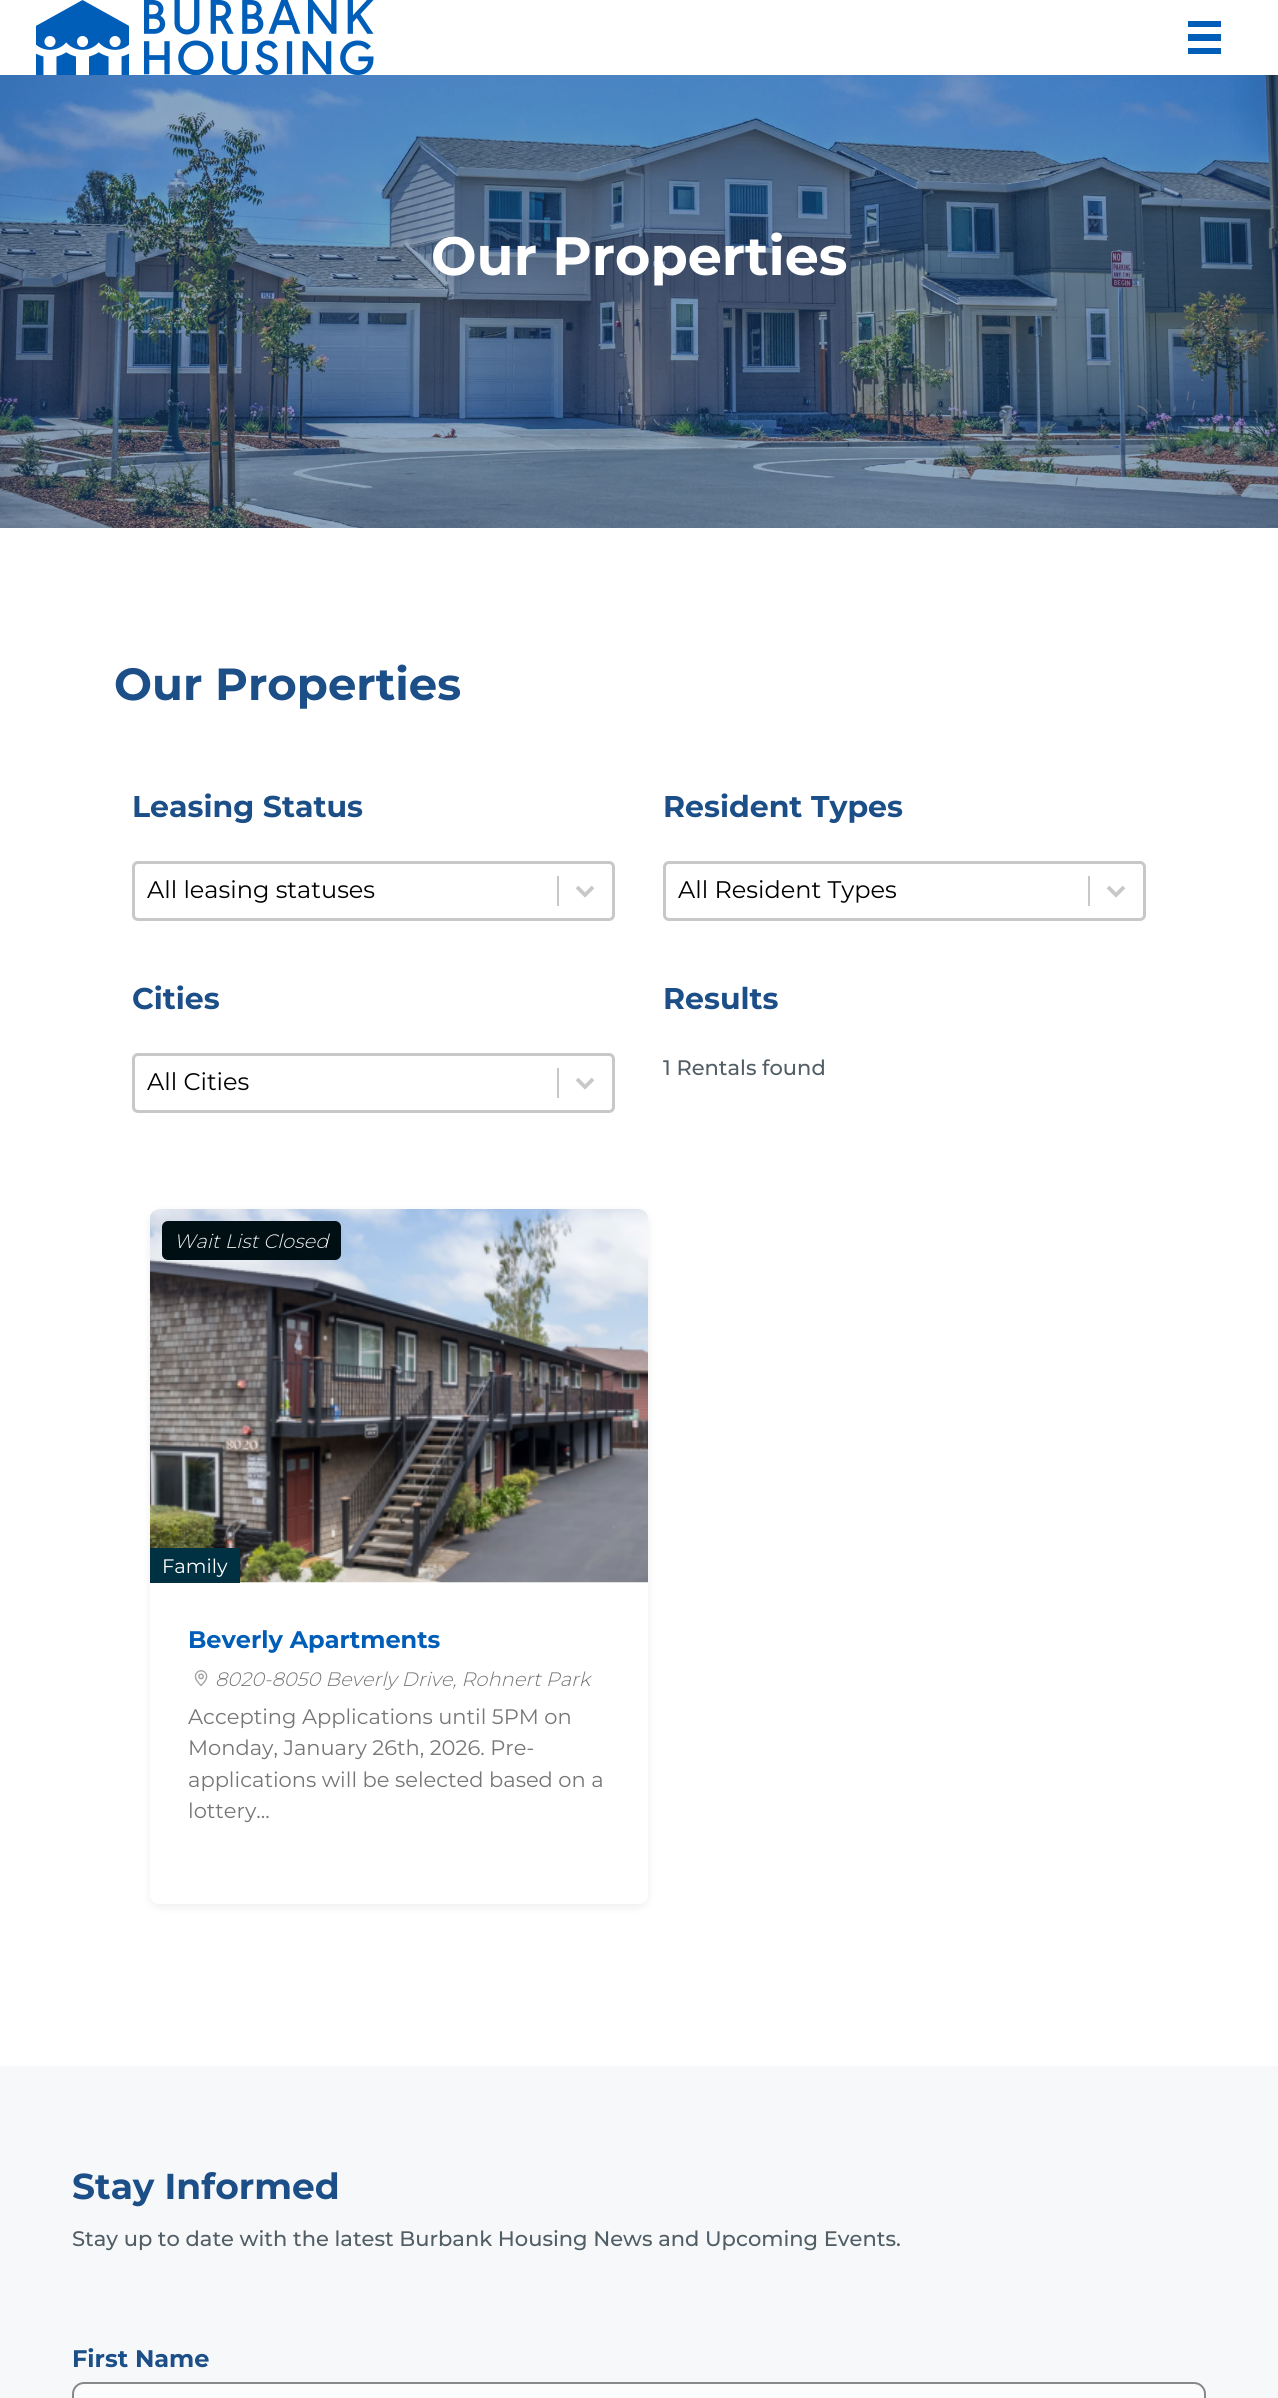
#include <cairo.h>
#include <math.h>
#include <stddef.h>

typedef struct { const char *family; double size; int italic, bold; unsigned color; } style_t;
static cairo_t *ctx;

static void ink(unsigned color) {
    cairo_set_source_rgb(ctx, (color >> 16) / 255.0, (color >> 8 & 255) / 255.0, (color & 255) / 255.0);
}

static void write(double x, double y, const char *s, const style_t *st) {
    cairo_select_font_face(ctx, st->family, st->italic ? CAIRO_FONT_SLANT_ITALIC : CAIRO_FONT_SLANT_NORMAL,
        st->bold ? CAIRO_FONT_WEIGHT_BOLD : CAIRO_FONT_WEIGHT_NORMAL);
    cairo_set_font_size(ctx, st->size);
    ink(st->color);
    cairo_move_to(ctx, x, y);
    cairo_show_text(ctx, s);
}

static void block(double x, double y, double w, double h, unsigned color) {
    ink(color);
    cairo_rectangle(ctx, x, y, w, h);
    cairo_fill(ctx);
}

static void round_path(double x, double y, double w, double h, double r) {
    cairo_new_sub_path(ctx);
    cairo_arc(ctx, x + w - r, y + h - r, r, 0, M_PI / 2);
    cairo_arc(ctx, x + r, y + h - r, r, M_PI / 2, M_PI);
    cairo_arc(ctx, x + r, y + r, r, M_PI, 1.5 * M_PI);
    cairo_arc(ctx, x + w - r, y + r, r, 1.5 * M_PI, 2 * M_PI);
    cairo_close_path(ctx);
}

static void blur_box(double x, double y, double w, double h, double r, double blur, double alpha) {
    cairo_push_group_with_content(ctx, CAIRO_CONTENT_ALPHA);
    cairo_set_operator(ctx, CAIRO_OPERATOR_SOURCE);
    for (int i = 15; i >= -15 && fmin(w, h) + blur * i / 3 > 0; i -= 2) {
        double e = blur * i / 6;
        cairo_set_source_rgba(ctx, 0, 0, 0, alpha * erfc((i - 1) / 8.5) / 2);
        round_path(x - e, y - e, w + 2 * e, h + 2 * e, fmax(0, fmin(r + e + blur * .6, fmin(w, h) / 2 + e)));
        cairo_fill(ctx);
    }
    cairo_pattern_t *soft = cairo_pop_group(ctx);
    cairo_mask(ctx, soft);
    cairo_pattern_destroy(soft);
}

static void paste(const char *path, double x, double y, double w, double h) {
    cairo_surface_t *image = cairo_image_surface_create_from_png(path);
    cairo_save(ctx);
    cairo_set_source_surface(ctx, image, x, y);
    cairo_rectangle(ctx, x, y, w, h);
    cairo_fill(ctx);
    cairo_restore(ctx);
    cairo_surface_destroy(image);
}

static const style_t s1 = {"Montserrat", 54, 0, 1, 0xffffff};
static const style_t s2 = {"Montserrat", 45, 0, 1, 0x1c4e87};
static const style_t s3 = {"Montserrat", 30, 0, 1, 0x1c4e87};
static const style_t s4 = {"Montserrat", 24, 0, 0, 0x000000};
static const style_t s5 = {"Montserrat Medium", 21, 0, 0, 0x525e66};
static const style_t s6 = {"Montserrat Light", 19.5, 1, 0, 0xeeeeee};
static const style_t s7 = {"Montserrat", 19.5, 0, 0, 0xffffff};
static const style_t s8 = {"Montserrat", 24, 0, 1, 0x005eb8};
static const style_t s9 = {"Montserrat Light", 19.5, 1, 0, 0x767676};
static const style_t s10 = {"Montserrat", 21, 0, 0, 0x767676};
static const style_t s11 = {"Montserrat", 36, 0, 1, 0x1c4e87};
static const style_t s12 = {"Montserrat", 24, 0, 1, 0x1c4e87};

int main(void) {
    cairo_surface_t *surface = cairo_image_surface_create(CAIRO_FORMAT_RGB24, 1278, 2398);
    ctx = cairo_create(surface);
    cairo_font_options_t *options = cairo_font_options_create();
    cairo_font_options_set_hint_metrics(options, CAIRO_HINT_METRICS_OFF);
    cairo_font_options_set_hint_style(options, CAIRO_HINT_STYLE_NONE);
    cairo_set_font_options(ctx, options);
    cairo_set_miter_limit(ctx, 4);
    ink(0xffffff);
    cairo_paint(ctx);
    paste("pic1.png", 36, 0, 338, 75);
    block(1188, 21, 33, 6, 0x005eb8);
    block(1188, 34, 33, 7, 0x005eb8);
    block(1188, 48, 33, 6, 0x005eb8);
    paste("pic2.png", 0, 75, 1278, 453);
    write(431, 275, "Our Properties", &s1);
    write(114, 700, "Our Properties", &s2);
    write(132, 817, "Leasing Status", &s3);
    round_path(133.5, 862.5, 480, 57, 4.5);
    ink(0xc8c8c8);
    cairo_set_line_width(ctx, 3);
    cairo_stroke(ctx);
    write(147, 898, "All leasing statuses", &s4);
    block(557, 876, 2, 30, 0xc8c8c8);
    cairo_new_path(ctx);
    cairo_move_to(ctx, 585, 895);
    cairo_line_to(ctx, 577, 887);
    cairo_line_to(ctx, 585, 895);
    cairo_line_to(ctx, 593, 887);
    cairo_close_path(ctx);
    cairo_set_line_width(ctx, 3.8);
    cairo_stroke(ctx);
    write(663, 817, "Resident Types", &s3);
    round_path(664.5, 862.5, 480, 57, 4.5);
    ink(0xc8c8c8);
    cairo_set_line_width(ctx, 3);
    cairo_stroke(ctx);
    write(678, 898, "All Resident Types", &s4);
    block(1088, 876, 2, 30, 0xc8c8c8);
    cairo_new_path(ctx);
    cairo_move_to(ctx, 1116, 895);
    cairo_line_to(ctx, 1108, 887);
    cairo_line_to(ctx, 1116, 895);
    cairo_line_to(ctx, 1124, 887);
    cairo_close_path(ctx);
    cairo_set_line_width(ctx, 3.8);
    cairo_stroke(ctx);
    write(132, 1009, "Cities", &s3);
    round_path(133.5, 1054.5, 480, 57, 4.5);
    ink(0xc8c8c8);
    cairo_set_line_width(ctx, 3);
    cairo_stroke(ctx);
    write(147, 1090, "All Cities", &s4);
    block(557, 1068, 2, 30, 0xc8c8c8);
    cairo_new_path(ctx);
    cairo_move_to(ctx, 585, 1087);
    cairo_line_to(ctx, 577, 1079);
    cairo_line_to(ctx, 585, 1087);
    cairo_line_to(ctx, 593, 1079);
    cairo_close_path(ctx);
    cairo_set_line_width(ctx, 3.8);
    cairo_stroke(ctx);
    write(663, 1009, "Results", &s3);
    write(663, 1075, "1 Rentals found", &s5);
    ink(0x000000);
    blur_box(150, 1212, 498, 695, 9, 4.5, 0.07);
    ink(0xffffff);
    round_path(150, 1209, 498, 695, 9);
    cairo_fill(ctx);
    paste("pic3.png", 150, 1209, 498, 374);
    ink(0x000f14);
    round_path(162, 1221, 179, 39, 6);
    cairo_fill(ctx);
    write(174, 1248, "Wait List Closed", &s6);
    block(150, 1548, 90, 35, 0x003142);
    write(162, 1573, "Family", &s7);
    write(188, 1648, "Beverly Apartments", &s8);
    ink(0xffffff);
    cairo_new_path(ctx);
    cairo_move_to(ctx, 150, 1661);
    cairo_line_to(ctx, 648, 1661);
    cairo_line_to(ctx, 648, 1895);
    cairo_curve_to(ctx, 648, 1900, 644, 1904, 639, 1904);
    cairo_line_to(ctx, 159, 1904);
    cairo_curve_to(ctx, 154, 1904, 150, 1900, 150, 1895);
    cairo_close_path(ctx);
    cairo_fill(ctx);
    paste("pic4.png", 194, 1670, 14, 17);
    write(215, 1686, "8020-8050 Beverly Drive, Rohnert Park", &s9);
    write(188, 1724, "Accepting Applications until 5PM on", &s10);
    write(188, 1755, "Monday, January 26th, 2026. Pre-", &s10);
    write(188, 1787, "applications will be selected based on a", &s10);
    write(188, 1818, "lottery...", &s10);
    block(0, 2066, 1278, 332, 0xf6f8f9);
    write(72, 2199, "Stay Informed", &s11);
    write(72, 2246, "Stay up to date with the latest Burbank Housing News and Upcoming Events.", &s5);
    write(72, 2367, "First Name", &s12);
    ink(0xfcfcfc);
    round_path(73, 2383, 1132, 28, 11);
    cairo_fill_preserve(ctx);
    ink(0x888888);
    cairo_set_line_width(ctx, 2);
    cairo_stroke(ctx);
    cairo_surface_write_to_png(surface, "screenshot.png");
    cairo_font_options_destroy(options);
    cairo_destroy(ctx);
    cairo_surface_destroy(surface);
    return 0;
}
